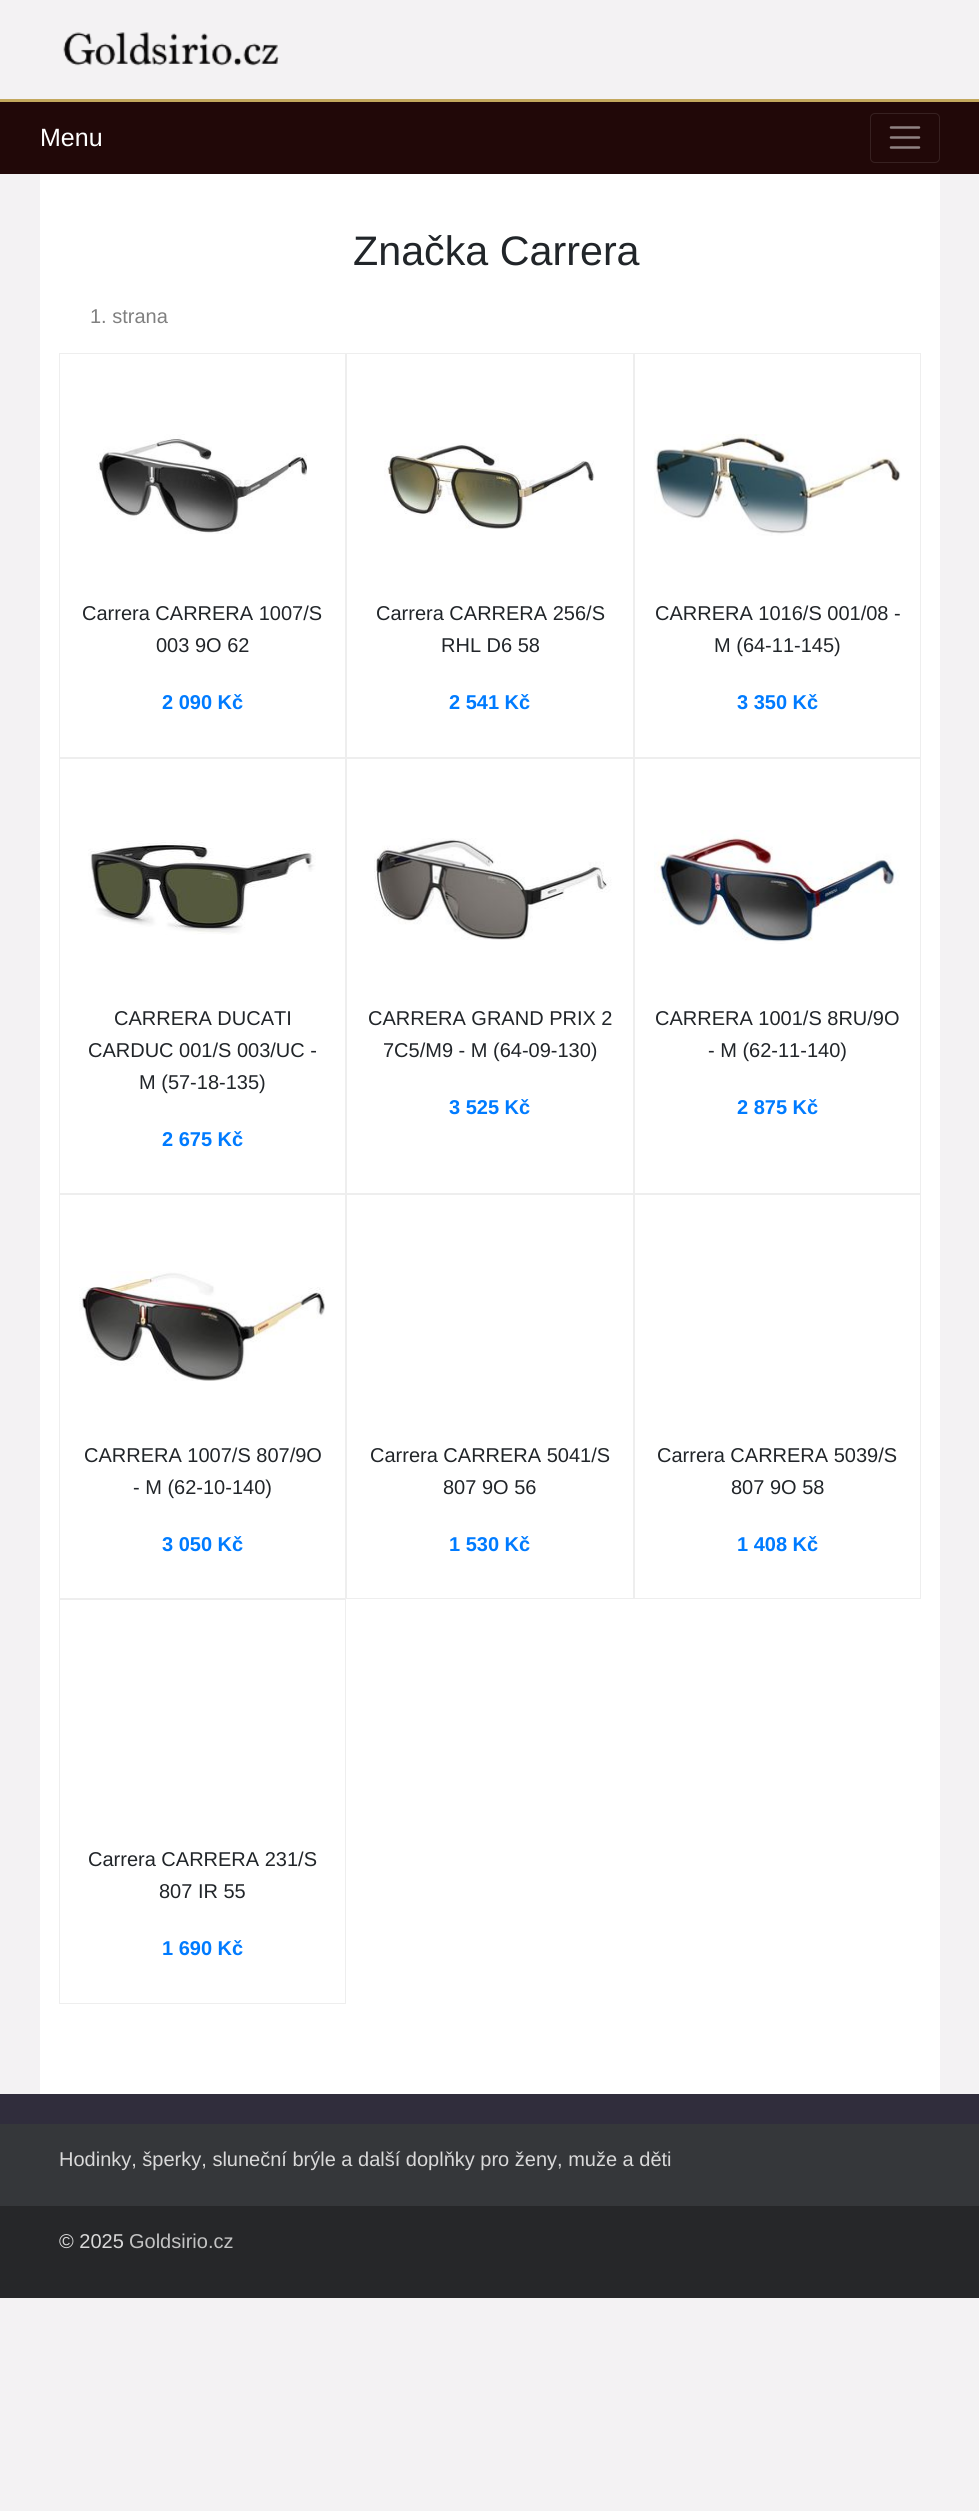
#include <cairo.h>
#include <math.h>
#include <stddef.h>

typedef struct { const char *family; double size; int italic, bold; unsigned color; } style_t;
static cairo_t *ctx;

static void ink(unsigned color) {
    cairo_set_source_rgb(ctx, (color >> 16) / 255.0, (color >> 8 & 255) / 255.0, (color & 255) / 255.0);
}

static void write(double x, double y, const char *s, const style_t *st) {
    cairo_select_font_face(ctx, st->family, st->italic ? CAIRO_FONT_SLANT_ITALIC : CAIRO_FONT_SLANT_NORMAL,
        st->bold ? CAIRO_FONT_WEIGHT_BOLD : CAIRO_FONT_WEIGHT_NORMAL);
    cairo_set_font_size(ctx, st->size);
    ink(st->color);
    cairo_move_to(ctx, x, y);
    cairo_show_text(ctx, s);
}

static void block(double x, double y, double w, double h, unsigned color) {
    ink(color);
    cairo_rectangle(ctx, x, y, w, h);
    cairo_fill(ctx);
}

static void round_path(double x, double y, double w, double h, double r) {
    cairo_new_sub_path(ctx);
    cairo_arc(ctx, x + w - r, y + h - r, r, 0, M_PI / 2);
    cairo_arc(ctx, x + r, y + h - r, r, M_PI / 2, M_PI);
    cairo_arc(ctx, x + r, y + r, r, M_PI, 1.5 * M_PI);
    cairo_arc(ctx, x + w - r, y + r, r, 1.5 * M_PI, 2 * M_PI);
    cairo_close_path(ctx);
}

static void paste(const char *path, double x, double y, double w, double h) {
    cairo_surface_t *image = cairo_image_surface_create_from_png(path);
    cairo_save(ctx);
    cairo_set_source_surface(ctx, image, x, y);
    cairo_rectangle(ctx, x, y, w, h);
    cairo_fill(ctx);
    cairo_restore(ctx);
    cairo_surface_destroy(image);
}

static const style_t s1 = {"Liberation Sans", 25, 0, 0, 0xffffff};
static const style_t s2 = {"Liberation Sans", 41.25, 0, 0, 0x212529};
static const style_t s3 = {"Liberation Sans", 20, 0, 0, 0x808080};
static const style_t s4 = {"Liberation Sans", 20, 0, 0, 0x212529};
static const style_t s5 = {"Liberation Sans", 20, 0, 1, 0x007bff};
static const style_t s6 = {"Liberation Sans", 20, 0, 0, 0xd9d9d9};
static const style_t s7 = {"Liberation Sans", 20, 0, 0, 0xc3c3c3};

int main(void) {
    cairo_surface_t *surface = cairo_image_surface_create(CAIRO_FORMAT_RGB24, 979, 2511);
    ctx = cairo_create(surface);
    cairo_font_options_t *options = cairo_font_options_create();
    cairo_font_options_set_hint_metrics(options, CAIRO_HINT_METRICS_OFF);
    cairo_font_options_set_hint_style(options, CAIRO_HINT_STYLE_NONE);
    cairo_set_font_options(ctx, options);
    cairo_set_miter_limit(ctx, 4);
    ink(0xf3f2f3);
    cairo_paint(ctx);
    paste("pic1.png", 63, 32, 216, 34);
    block(0, 102, 979, 72, 0x210808);
    block(0, 99, 979, 3, 0xc3a85d);
    write(40, 146, "Menu", &s1);
    round_path(870.5, 113.5, 69, 49, 4.5);
    ink(0x372121);
    cairo_set_line_width(ctx, 1);
    cairo_stroke(ctx);
    cairo_new_path(ctx);
    cairo_move_to(ctx, 891, 127.5);
    cairo_line_to(ctx, 919, 127.5);
    cairo_move_to(ctx, 891, 137.5);
    cairo_line_to(ctx, 919, 137.5);
    cairo_move_to(ctx, 891, 147.5);
    cairo_line_to(ctx, 919, 147.5);
    ink(0x908484);
    cairo_set_line_width(ctx, 2.5);
    cairo_set_line_cap(ctx, CAIRO_LINE_CAP_ROUND);
    cairo_stroke(ctx);
    block(40, 174, 900, 1920, 0xffffff);
    write(353, 265, "Značka Carrera", &s2);
    write(90, 323, "1. strana", &s3);
    cairo_rectangle(ctx, 59.5, 353.5, 286, 404);
    ink(0xeeeeee);
    cairo_set_line_width(ctx, 1);
    cairo_set_line_cap(ctx, CAIRO_LINE_CAP_BUTT);
    cairo_stroke(ctx);
    paste("pic2.png", 96, 434, 211, 100);
    write(82, 620, "Carrera CARRERA 1007/S", &s4);
    write(156, 652, "003 9O 62", &s4);
    write(162, 709, "2 090 Kč", &s5);
    cairo_rectangle(ctx, 346.5, 353.5, 287, 404);
    ink(0xeeeeee);
    cairo_stroke(ctx);
    paste("pic3.png", 384, 443, 211, 86);
    write(376, 620, "Carrera CARRERA 256/S", &s4);
    write(441, 652, "RHL D6 58", &s4);
    write(449, 709, "2 541 Kč", &s5);
    cairo_rectangle(ctx, 634.5, 353.5, 286, 404);
    ink(0xeeeeee);
    cairo_stroke(ctx);
    paste("pic4.png", 654, 434, 247, 102);
    write(655, 620, "CARRERA 1016/S 001/08 -", &s4);
    write(714, 652, "M (64-11-145)", &s4);
    write(737, 709, "3 350 Kč", &s5);
    cairo_rectangle(ctx, 59.5, 758.5, 286, 435);
    ink(0xeeeeee);
    cairo_stroke(ctx);
    paste("pic5.png", 88, 840, 228, 95);
    write(114, 1025, "CARRERA DUCATI", &s4);
    write(88, 1057, "CARDUC 001/S 003/UC -", &s4);
    write(139, 1089, "M (57-18-135)", &s4);
    write(162, 1146, "2 675 Kč", &s5);
    cairo_rectangle(ctx, 346.5, 758.5, 287, 435);
    ink(0xeeeeee);
    cairo_stroke(ctx);
    paste("pic6.png", 374, 838, 238, 102);
    write(368, 1025, "CARRERA GRAND PRIX 2", &s4);
    write(383, 1057, "7C5/M9 - M (64-09-130)", &s4);
    write(449, 1114, "3 525 Kč", &s5);
    cairo_rectangle(ctx, 634.5, 758.5, 286, 435);
    ink(0xeeeeee);
    cairo_stroke(ctx);
    paste("pic7.png", 654, 830, 246, 114);
    write(655, 1025, "CARRERA 1001/S 8RU/9O", &s4);
    write(708, 1057, "- M (62-11-140)", &s4);
    write(737, 1114, "2 875 Kč", &s5);
    cairo_rectangle(ctx, 59.5, 1194.5, 286, 404);
    ink(0xeeeeee);
    cairo_stroke(ctx);
    paste("pic8.png", 79, 1271, 246, 110);
    write(84, 1462, "CARRERA 1007/S 807/9O", &s4);
    write(133, 1494, "- M (62-10-140)", &s4);
    write(162, 1551, "3 050 Kč", &s5);
    cairo_rectangle(ctx, 346.5, 1194.5, 287, 404);
    ink(0xeeeeee);
    cairo_stroke(ctx);
    write(370, 1462, "Carrera CARRERA 5041/S", &s4);
    write(443, 1494, "807 9O 56", &s4);
    write(449, 1551, "1 530 Kč", &s5);
    cairo_rectangle(ctx, 634.5, 1194.5, 286, 404);
    ink(0xeeeeee);
    cairo_stroke(ctx);
    write(657, 1462, "Carrera CARRERA 5039/S", &s4);
    write(731, 1494, "807 9O 58", &s4);
    write(737, 1551, "1 408 Kč", &s5);
    cairo_rectangle(ctx, 59.5, 1599.5, 286, 404);
    ink(0xeeeeee);
    cairo_stroke(ctx);
    write(88, 1866, "Carrera CARRERA 231/S", &s4);
    write(159, 1898, "807 IR 55", &s4);
    write(162, 1955, "1 690 Kč", &s5);
    block(0, 2094, 979, 30, 0x302d3c);
    block(0, 2124, 979, 82, 0x35373a);
    write(59, 2166, "Hodinky, šperky, sluneční brýle a další doplňky pro ženy, muže a děti", &s6);
    block(0, 2206, 979, 92, 0x262729);
    write(59, 2248, "© 2025", &s6);
    write(129, 2248, "Goldsirio.cz", &s7);
    cairo_surface_write_to_png(surface, "screenshot.png");
    cairo_font_options_destroy(options);
    cairo_destroy(ctx);
    cairo_surface_destroy(surface);
    return 0;
}
